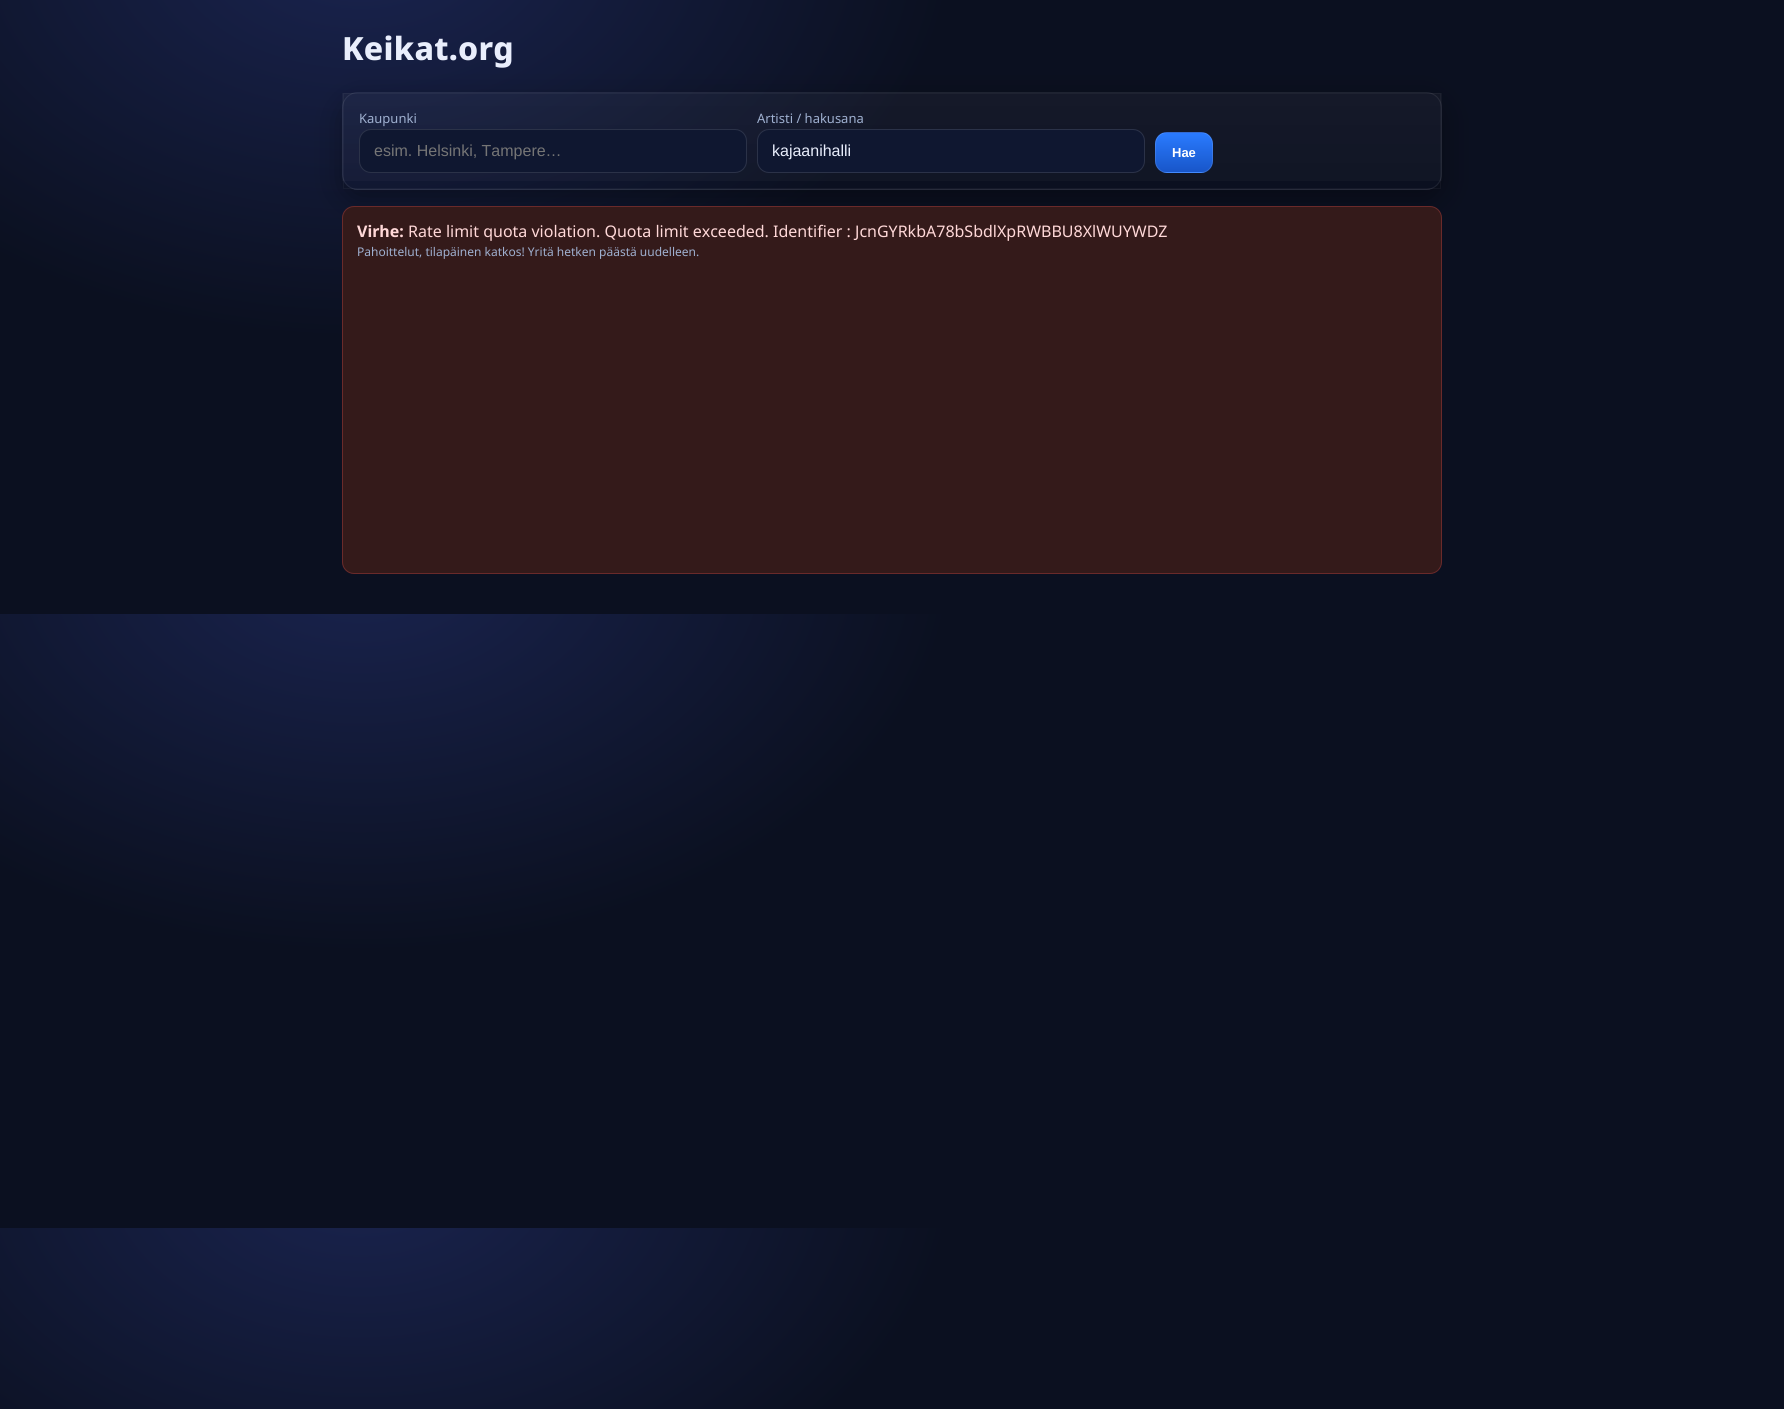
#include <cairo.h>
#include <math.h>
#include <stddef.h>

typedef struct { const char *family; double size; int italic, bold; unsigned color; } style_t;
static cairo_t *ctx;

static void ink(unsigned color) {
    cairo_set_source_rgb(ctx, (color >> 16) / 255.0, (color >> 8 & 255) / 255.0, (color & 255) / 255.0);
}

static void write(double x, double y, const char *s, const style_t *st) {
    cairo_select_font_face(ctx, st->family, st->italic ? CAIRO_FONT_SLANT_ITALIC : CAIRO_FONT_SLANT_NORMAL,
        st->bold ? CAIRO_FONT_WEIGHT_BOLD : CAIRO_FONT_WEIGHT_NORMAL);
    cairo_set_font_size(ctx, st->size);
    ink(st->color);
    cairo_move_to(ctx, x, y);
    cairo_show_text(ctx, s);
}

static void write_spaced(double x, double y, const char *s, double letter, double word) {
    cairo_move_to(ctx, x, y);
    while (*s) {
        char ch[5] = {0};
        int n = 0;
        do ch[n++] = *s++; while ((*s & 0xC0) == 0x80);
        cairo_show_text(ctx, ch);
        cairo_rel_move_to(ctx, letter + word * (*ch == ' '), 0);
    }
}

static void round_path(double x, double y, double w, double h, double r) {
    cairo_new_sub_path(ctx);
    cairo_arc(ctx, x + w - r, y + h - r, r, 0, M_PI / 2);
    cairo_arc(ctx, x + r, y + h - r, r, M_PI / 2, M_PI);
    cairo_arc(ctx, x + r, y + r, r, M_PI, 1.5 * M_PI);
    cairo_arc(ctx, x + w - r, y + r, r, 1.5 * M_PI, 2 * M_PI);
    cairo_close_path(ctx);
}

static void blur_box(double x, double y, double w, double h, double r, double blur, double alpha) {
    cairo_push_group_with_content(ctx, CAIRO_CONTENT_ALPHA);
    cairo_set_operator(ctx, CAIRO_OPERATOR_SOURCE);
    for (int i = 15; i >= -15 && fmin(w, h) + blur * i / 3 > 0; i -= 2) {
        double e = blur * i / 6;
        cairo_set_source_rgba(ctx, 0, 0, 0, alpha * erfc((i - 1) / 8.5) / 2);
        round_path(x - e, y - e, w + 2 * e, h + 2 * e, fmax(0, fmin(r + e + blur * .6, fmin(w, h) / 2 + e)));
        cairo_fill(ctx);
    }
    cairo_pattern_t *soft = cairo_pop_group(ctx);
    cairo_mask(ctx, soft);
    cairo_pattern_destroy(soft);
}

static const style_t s1 = {"Noto Sans", 13, 0, 0, 0x9fb0d0};
static const style_t s2 = {"Liberation Sans", 16, 0, 0, 0x757575};
static const style_t s3 = {"Liberation Sans", 16, 0, 0, 0xe9eefc};
static const style_t s4 = {"Liberation Sans", 13, 0, 1, 0xffffff};
static const style_t s5 = {"Noto Sans", 16, 0, 1, 0xffd8d8};
static const style_t s6 = {"Noto Sans", 16, 0, 0, 0xffd8d8};
static const style_t s7 = {"Noto Sans", 12, 0, 0, 0x9fb0d0};

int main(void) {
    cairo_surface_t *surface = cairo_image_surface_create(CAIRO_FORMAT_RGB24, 1784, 1409);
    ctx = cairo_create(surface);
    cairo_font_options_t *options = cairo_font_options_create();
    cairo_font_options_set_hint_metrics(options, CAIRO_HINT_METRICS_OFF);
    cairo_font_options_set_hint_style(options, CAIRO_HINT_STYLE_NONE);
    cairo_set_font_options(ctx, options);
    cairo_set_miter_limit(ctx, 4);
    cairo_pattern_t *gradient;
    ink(0xffffff);
    cairo_paint(ctx);
    gradient = cairo_pattern_create_radial(0, 0, 0, 0, 0, 1);
    cairo_pattern_set_matrix(gradient, &(cairo_matrix_t){1.0 / 1200, 0, 0, 1.0 / 800, -1.0 * 357 / 1200, -1.0 * -61 / 800});
    cairo_pattern_add_color_stop_rgba(gradient, 0, 0.102, 0.141, 0.314, 1);
    cairo_pattern_add_color_stop_rgba(gradient, 0.5, 0.043, 0.063, 0.125, 1);
    cairo_set_source(ctx, gradient);
    cairo_pattern_destroy(gradient);
    cairo_rectangle(ctx, 0, 0, 1784, 614);
    cairo_fill(ctx);
    gradient = cairo_pattern_create_radial(0, 0, 0, 0, 0, 1);
    cairo_pattern_set_matrix(gradient, &(cairo_matrix_t){1.0 / 1200, 0, 0, 1.0 / 800, -1.0 * 357 / 1200, -1.0 * 553 / 800});
    cairo_pattern_add_color_stop_rgba(gradient, 0, 0.102, 0.141, 0.314, 1);
    cairo_pattern_add_color_stop_rgba(gradient, 0.5, 0.043, 0.063, 0.125, 1);
    cairo_set_source(ctx, gradient);
    cairo_pattern_destroy(gradient);
    cairo_rectangle(ctx, 0, 614, 1784, 614);
    cairo_fill(ctx);
    gradient = cairo_pattern_create_radial(0, 0, 0, 0, 0, 1);
    cairo_pattern_set_matrix(gradient, &(cairo_matrix_t){1.0 / 1200, 0, 0, 1.0 / 800, -1.0 * 357 / 1200, -1.0 * 1167 / 800});
    cairo_pattern_add_color_stop_rgba(gradient, 0, 0.102, 0.141, 0.314, 1);
    cairo_pattern_add_color_stop_rgba(gradient, 0.5, 0.043, 0.063, 0.125, 1);
    cairo_set_source(ctx, gradient);
    cairo_pattern_destroy(gradient);
    cairo_rectangle(ctx, 0, 1228, 1784, 181);
    cairo_fill(ctx);
    cairo_save(ctx);
    cairo_set_fill_rule(ctx, CAIRO_FILL_RULE_EVEN_ODD);
    cairo_new_path(ctx);
    cairo_move_to(ctx, 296, 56);
    cairo_line_to(ctx, 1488, 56);
    cairo_line_to(ctx, 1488, 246);
    cairo_line_to(ctx, 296, 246);
    cairo_close_path(ctx);
    cairo_move_to(ctx, 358, 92);
    cairo_line_to(ctx, 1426, 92);
    cairo_curve_to(ctx, 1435, 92, 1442, 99, 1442, 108);
    cairo_line_to(ctx, 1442, 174);
    cairo_curve_to(ctx, 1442, 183, 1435, 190, 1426, 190);
    cairo_line_to(ctx, 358, 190);
    cairo_curve_to(ctx, 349, 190, 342, 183, 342, 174);
    cairo_line_to(ctx, 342, 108);
    cairo_curve_to(ctx, 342, 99, 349, 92, 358, 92);
    cairo_close_path(ctx);
    cairo_clip(ctx);
    ink(0x000000);
    blur_box(342, 102, 1100, 98, 16, 15, 0.35);
    cairo_restore(ctx);
    cairo_select_font_face(ctx, "Noto Sans ExtraBold", CAIRO_FONT_SLANT_NORMAL, CAIRO_FONT_WEIGHT_NORMAL);
    cairo_set_font_size(ctx, 32);
    ink(0xe9eefc);
    write_spaced(342, 60, "Keikat.org", 0.25, 0);
    gradient = cairo_pattern_create_linear(892, 93, 892, 189);
    cairo_pattern_add_color_stop_rgba(gradient, 0, 1, 1, 1, 0.04);
    cairo_pattern_add_color_stop_rgba(gradient, 1, 1, 1, 1, 0.02);
    cairo_set_source(ctx, gradient);
    cairo_pattern_destroy(gradient);
    cairo_rectangle(ctx, 342, 93, 1100, 88);
    cairo_fill(ctx);
    gradient = cairo_pattern_create_linear(892, 189, 892, 285);
    cairo_pattern_add_color_stop_rgba(gradient, 0, 1, 1, 1, 0.04);
    cairo_pattern_add_color_stop_rgba(gradient, 1, 1, 1, 1, 0.02);
    cairo_set_source(ctx, gradient);
    cairo_pattern_destroy(gradient);
    cairo_rectangle(ctx, 354, 189, 1076, 1);
    cairo_fill(ctx);
    cairo_rectangle(ctx, 343.5, 93.5, 1097, 95);
    cairo_set_source_rgba(ctx, 1, 1, 1, 0.04);
    cairo_set_line_width(ctx, 1);
    cairo_stroke(ctx);
    round_path(342.5, 92.5, 1099, 97, 15.5);
    cairo_set_source_rgba(ctx, 1, 1, 1, 0.08);
    cairo_stroke(ctx);
    write(359, 123, "Kaupunki", &s1);
    ink(0x0f1730);
    round_path(359, 129, 388, 44, 12);
    cairo_fill(ctx);
    round_path(359.5, 129.5, 387, 43, 11.5);
    cairo_set_source_rgba(ctx, 1, 1, 1, 0.12);
    cairo_stroke(ctx);
    write(374, 156, "esim. Helsinki, Tampere…", &s2);
    write(757, 123, "Artisti / hakusana", &s1);
    ink(0x0f1730);
    round_path(757, 129, 388, 44, 12);
    cairo_fill(ctx);
    round_path(757.5, 129.5, 387, 43, 11.5);
    cairo_set_source_rgba(ctx, 1, 1, 1, 0.12);
    cairo_stroke(ctx);
    write(772, 156, "kajaanihalli", &s3);
    cairo_save(ctx);
    round_path(1155, 132, 58, 41, 12);
    cairo_clip(ctx);
    gradient = cairo_pattern_create_linear(1184, 94, 1184, 133);
    cairo_pattern_add_color_stop_rgba(gradient, 0, 0.165, 0.482, 1, 1);
    cairo_pattern_add_color_stop_rgba(gradient, 1, 0.094, 0.337, 0.788, 1);
    cairo_set_source(ctx, gradient);
    cairo_pattern_destroy(gradient);
    cairo_rectangle(ctx, 1155, 132, 58, 1);
    cairo_fill(ctx);
    gradient = cairo_pattern_create_linear(1184, 133, 1184, 172);
    cairo_pattern_add_color_stop_rgba(gradient, 0, 0.165, 0.482, 1, 1);
    cairo_pattern_add_color_stop_rgba(gradient, 1, 0.094, 0.337, 0.788, 1);
    cairo_set_source(ctx, gradient);
    cairo_pattern_destroy(gradient);
    cairo_rectangle(ctx, 1155, 133, 58, 39);
    cairo_fill(ctx);
    gradient = cairo_pattern_create_linear(1184, 172, 1184, 211);
    cairo_pattern_add_color_stop_rgba(gradient, 0, 0.165, 0.482, 1, 1);
    cairo_pattern_add_color_stop_rgba(gradient, 1, 0.094, 0.337, 0.788, 1);
    cairo_set_source(ctx, gradient);
    cairo_pattern_destroy(gradient);
    cairo_rectangle(ctx, 1155, 172, 58, 1);
    cairo_fill(ctx);
    cairo_restore(ctx);
    round_path(1155.5, 132.5, 57, 40, 11.5);
    cairo_set_source_rgba(ctx, 1, 1, 1, 0.12);
    cairo_stroke(ctx);
    write(1172, 157, "Hae", &s4);
    ink(0x341a1a);
    round_path(342.5, 206.5, 1099, 367, 11.5);
    cairo_fill_preserve(ctx);
    ink(0x6a2a2a);
    cairo_stroke(ctx);
    write(357, 237, "Virhe:", &s5);
    write(408, 237, "Rate limit quota violation. Quota limit exceeded. Identifier : JcnGYRkbA78bSbdlXpRWBBU8XlWUYWDZ", &s6);
    write(357, 256, "Pahoittelut, tilapäinen katkos! Yritä hetken päästä uudelleen.", &s7);
    cairo_surface_write_to_png(surface, "screenshot.png");
    cairo_font_options_destroy(options);
    cairo_destroy(ctx);
    cairo_surface_destroy(surface);
    return 0;
}
